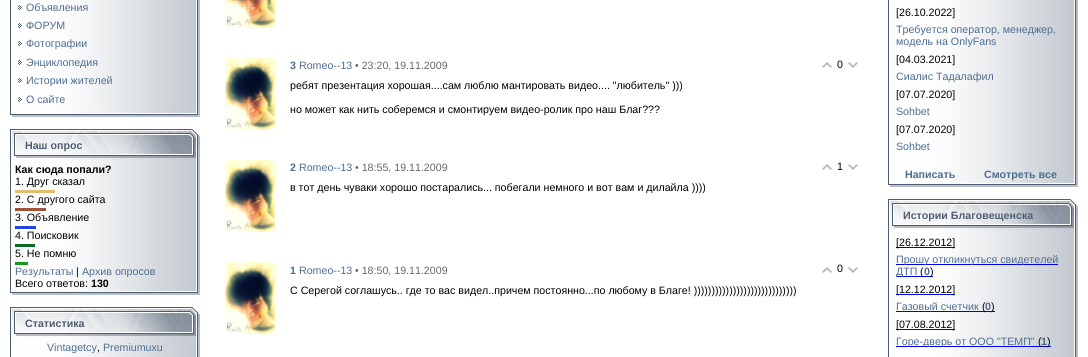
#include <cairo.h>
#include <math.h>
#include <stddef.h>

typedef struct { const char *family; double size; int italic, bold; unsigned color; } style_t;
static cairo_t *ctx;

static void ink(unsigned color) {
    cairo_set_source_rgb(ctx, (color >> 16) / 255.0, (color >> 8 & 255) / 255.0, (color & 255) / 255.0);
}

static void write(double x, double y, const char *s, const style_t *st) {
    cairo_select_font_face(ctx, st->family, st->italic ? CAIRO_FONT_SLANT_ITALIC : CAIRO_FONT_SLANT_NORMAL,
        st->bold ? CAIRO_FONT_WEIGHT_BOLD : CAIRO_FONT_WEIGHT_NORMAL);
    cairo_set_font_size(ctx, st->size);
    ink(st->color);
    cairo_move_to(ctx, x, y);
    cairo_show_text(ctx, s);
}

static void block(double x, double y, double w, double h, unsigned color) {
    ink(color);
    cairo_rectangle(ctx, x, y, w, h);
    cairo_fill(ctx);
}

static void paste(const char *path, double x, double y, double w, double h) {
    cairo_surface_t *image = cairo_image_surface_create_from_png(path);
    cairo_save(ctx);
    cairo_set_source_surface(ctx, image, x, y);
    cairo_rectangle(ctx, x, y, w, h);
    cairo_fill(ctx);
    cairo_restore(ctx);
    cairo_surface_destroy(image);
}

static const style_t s1 = {"Liberation Sans", 10.65, 0, 0, 0x4d6d91};
static const style_t s2 = {"Liberation Sans", 10.65, 0, 1, 0x4f5d71};
static const style_t s3 = {"Liberation Sans", 10.65, 0, 1, 0x000000};
static const style_t s4 = {"Liberation Sans", 10.65, 0, 0, 0x000000};
static const style_t s5 = {"Liberation Sans", 10.65, 0, 1, 0x4d6d91};
static const style_t s6 = {"Liberation Sans", 10.65, 0, 0, 0x666666};

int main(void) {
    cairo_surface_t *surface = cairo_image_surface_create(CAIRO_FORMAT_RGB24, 1088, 357);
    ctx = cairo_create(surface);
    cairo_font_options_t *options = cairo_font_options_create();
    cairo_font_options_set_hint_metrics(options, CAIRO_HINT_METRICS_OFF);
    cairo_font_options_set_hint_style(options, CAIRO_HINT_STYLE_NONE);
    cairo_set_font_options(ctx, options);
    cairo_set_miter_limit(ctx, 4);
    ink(0xffffff);
    cairo_paint(ctx);
    paste("pic1.png", 10, 0, 190, 111);
    paste("pic2.png", 18, 5, 4, 5);
    write(26, 11, "Объявления", &s1);
    paste("pic2.png", 18, 23, 4, 5);
    write(26, 29, "ФОРУМ", &s1);
    paste("pic2.png", 18, 41, 4, 5);
    write(26, 47, "Фотографии", &s1);
    paste("pic2.png", 18, 60, 4, 5);
    write(26, 66, "Энциклопедия", &s1);
    paste("pic2.png", 18, 78, 4, 5);
    write(26, 84, "Истории жителей", &s1);
    paste("pic2.png", 18, 97, 4, 5);
    write(26, 103, "О сайте", &s1);
    paste("pic3.png", 10, 111, 190, 6);
    paste("pic4.png", 10, 129, 190, 31);
    write(25, 149, "Наш опрос", &s2);
    paste("pic5.png", 10, 160, 190, 129);
    write(15, 173, "Как сюда попали?", &s3);
    write(15, 185, "1. Друг сказал", &s4);
    block(15, 190, 40, 3, 0xe3bf6a);
    write(15, 203, "2. С другого сайта", &s4);
    block(15, 208, 31, 3, 0xa1523a);
    write(15, 221, "3. Объявление", &s4);
    block(15, 226, 21, 3, 0x2144da);
    write(15, 239, "4. Поисковик", &s4);
    block(15, 244, 20, 3, 0x0b6c24);
    write(15, 257, "5. Не помню", &s4);
    block(15, 262, 13, 3, 0x189721);
    write(15, 275, "Результаты", &s1);
    write(76, 275, "|", &s4);
    write(82, 275, "Архив опросов", &s1);
    write(15, 287, "Всего ответов:", &s4);
    write(91, 287, "130", &s3);
    paste("pic3.png", 10, 289, 190, 6);
    paste("pic4.png", 10, 307, 190, 31);
    write(25, 327, "Статистика", &s2);
    paste("pic6.png", 10, 338, 190, 19);
    write(47, 351, "Vintagetcy", &s1);
    write(97, 351, ",", &s4);
    write(103, 351, "Premiumuxu", &s1);
    paste("pic7.png", 225, 0, 50, 28);
    paste("pic8.png", 225, 58, 50, 72);
    write(290, 69, "3", &s5);
    write(299, 69, "Romeo--13", &s1);
    write(355, 69, "• 23:20, 19.11.2009", &s6);
    paste("pic9.png", 822, 62, 10, 6);
    write(837, 68, "0", &s4);
    paste("pic10.png", 848, 62, 10, 6);
    write(290, 89, "ребят презентация хорошая....сам люблю мантировать видео.... \"любитель\" )))", &s4);
    write(290, 113, "но может как нить соберемся и смонтируем видео-ролик про наш Благ?\077?", &s4);
    paste("pic8.png", 225, 160, 50, 72);
    write(290, 171, "2", &s5);
    write(299, 171, "Romeo--13", &s1);
    write(355, 171, "• 18:55, 19.11.2009", &s6);
    paste("pic9.png", 822, 164, 10, 6);
    write(837, 170, "1", &s4);
    paste("pic10.png", 848, 164, 10, 6);
    write(290, 191, "в тот день чуваки хорошо постарались... побегали немного и вот вам и дилайла ))))", &s4);
    paste("pic8.png", 225, 262, 50, 72);
    write(290, 274, "1", &s5);
    write(299, 274, "Romeo--13", &s1);
    write(355, 274, "• 18:50, 19.11.2009", &s6);
    paste("pic9.png", 822, 267, 10, 6);
    write(837, 272, "0", &s4);
    paste("pic10.png", 848, 267, 10, 6);
    write(290, 294, "С Серегой соглашусь.. где то вас видел..причем постоянно...по любому в Благе! )))))))))))))))))))))))))))))", &s4);
    paste("pic11.png", 888, 0, 190, 181);
    write(896, 16, "[26.10.2022]", &s4);
    write(896, 33, "Требуется оператор, менеджер,", &s1);
    write(896, 45, "модель на OnlyFans", &s1);
    write(896, 63, "[04.03.2021]", &s4);
    write(896, 80, "Сиалис Тадалафил", &s1);
    write(896, 98, "[07.07.2020]", &s4);
    write(896, 115, "Sohbet", &s1);
    write(896, 133, "[07.07.2020]", &s4);
    write(896, 150, "Sohbet", &s1);
    write(905, 178, "Написать", &s5);
    write(984, 178, "Смотреть все", &s5);
    paste("pic3.png", 888, 181, 190, 6);
    paste("pic4.png", 888, 199, 190, 31);
    write(903, 219, "Истории Благовещенска", &s2);
    paste("pic12.png", 888, 230, 190, 127);
    block(896, 247, 59, 1, 0x0000ee);
    write(896, 246, "[26.12.2012]", &s4);
    block(896, 264, 162, 1, 0x0000ee);
    write(896, 263, "Прошу откликнуться свидетелей", &s1);
    block(896, 276, 37, 1, 0x0000ee);
    write(896, 275, "ДТП", &s1);
    write(920, 275, "(", &s4);
    write(924, 275, "0", &s5);
    write(930, 275, ")", &s4);
    block(896, 294, 59, 1, 0x0000ee);
    write(896, 293, "[12.12.2012]", &s4);
    write(896, 310, "Газовый счетчик", &s1);
    block(896, 311, 89, 1, 0x0000ee);
    write(982, 310, "(", &s4);
    block(985, 311, 10, 1, 0x0000ee);
    write(985, 310, "0", &s5);
    write(991, 310, ")", &s4);
    block(896, 329, 59, 1, 0x0000ee);
    write(896, 328, "[07.08.2012]", &s4);
    block(896, 346, 145, 1, 0x0000ee);
    write(896, 345, "Горе-дверь от ООО \"ТЕМП\"", &s1);
    write(1038, 345, "(", &s4);
    block(1041, 346, 10, 1, 0x0000ee);
    write(1041, 345, "1", &s5);
    write(1047, 345, ")", &s4);
    cairo_surface_write_to_png(surface, "screenshot.png");
    cairo_font_options_destroy(options);
    cairo_destroy(ctx);
    cairo_surface_destroy(surface);
    return 0;
}
